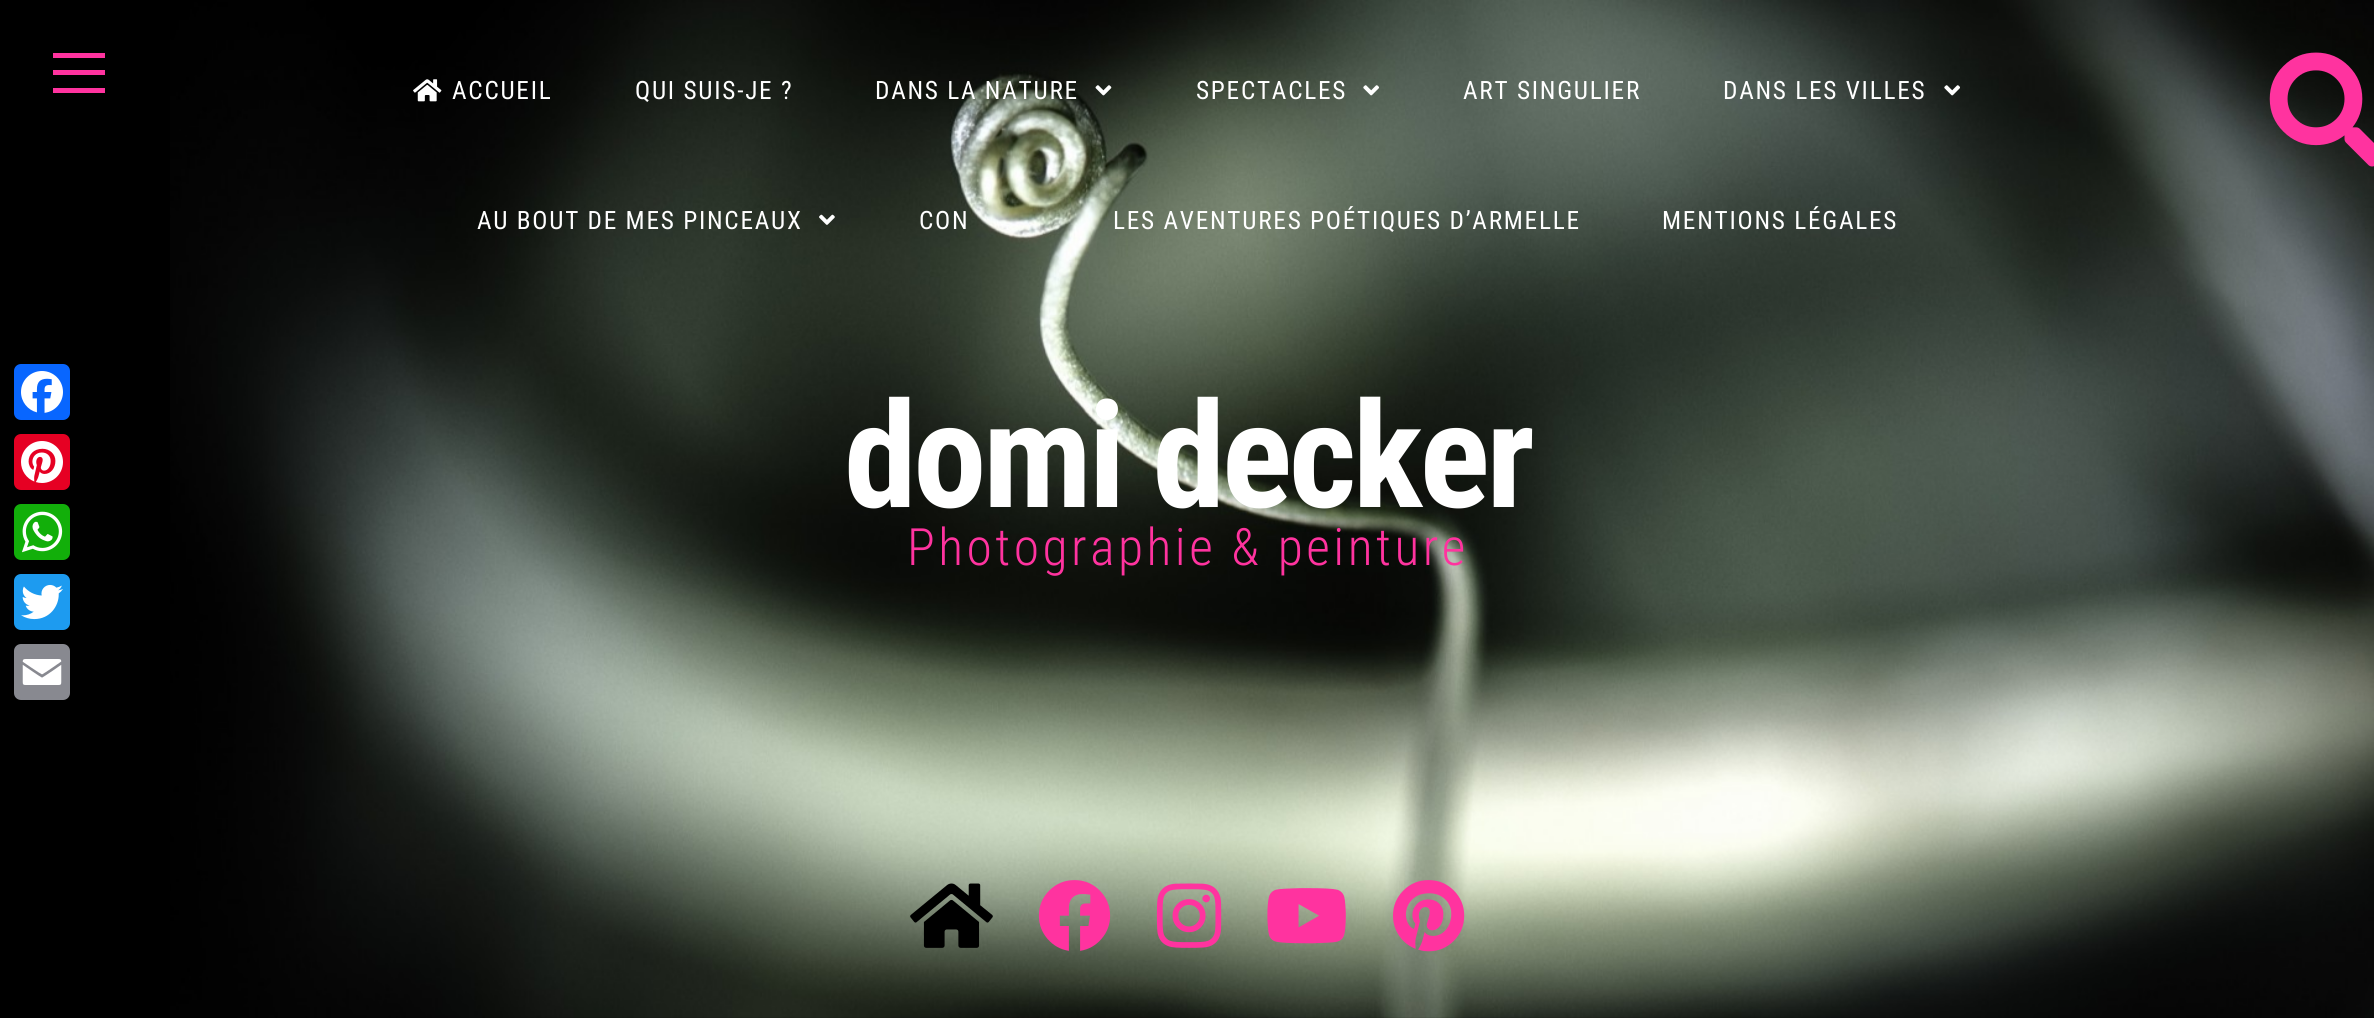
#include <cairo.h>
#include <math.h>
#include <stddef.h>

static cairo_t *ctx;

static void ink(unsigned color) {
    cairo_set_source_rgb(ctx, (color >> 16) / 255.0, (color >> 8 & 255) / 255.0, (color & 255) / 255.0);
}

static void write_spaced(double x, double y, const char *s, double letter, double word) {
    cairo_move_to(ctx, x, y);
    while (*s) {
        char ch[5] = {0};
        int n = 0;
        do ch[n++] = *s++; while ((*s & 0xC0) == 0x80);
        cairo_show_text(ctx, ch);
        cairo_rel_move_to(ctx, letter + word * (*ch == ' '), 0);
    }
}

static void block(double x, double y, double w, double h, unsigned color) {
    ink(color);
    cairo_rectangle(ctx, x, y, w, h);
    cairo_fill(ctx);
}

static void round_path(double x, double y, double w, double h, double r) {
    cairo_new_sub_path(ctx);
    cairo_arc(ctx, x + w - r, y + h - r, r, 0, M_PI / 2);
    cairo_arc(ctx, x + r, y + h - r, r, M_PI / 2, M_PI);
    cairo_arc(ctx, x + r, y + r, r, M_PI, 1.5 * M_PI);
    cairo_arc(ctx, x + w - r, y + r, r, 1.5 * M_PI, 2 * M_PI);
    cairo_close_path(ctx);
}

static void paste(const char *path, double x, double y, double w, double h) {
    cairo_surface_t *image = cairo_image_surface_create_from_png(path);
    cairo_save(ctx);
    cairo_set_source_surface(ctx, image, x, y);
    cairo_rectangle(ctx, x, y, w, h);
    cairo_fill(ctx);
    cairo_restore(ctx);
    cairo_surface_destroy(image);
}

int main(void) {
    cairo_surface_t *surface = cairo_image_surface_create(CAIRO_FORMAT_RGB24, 2374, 1018);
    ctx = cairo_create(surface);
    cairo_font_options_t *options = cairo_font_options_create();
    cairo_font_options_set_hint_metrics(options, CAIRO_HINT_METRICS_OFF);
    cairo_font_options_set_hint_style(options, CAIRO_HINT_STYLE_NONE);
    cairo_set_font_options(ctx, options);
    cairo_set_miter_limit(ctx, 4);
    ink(0x000000);
    cairo_paint(ctx);
    block(53, 53, 52, 5, 0xff339f);
    block(53, 70, 52, 5, 0xff339f);
    block(53, 88, 52, 5, 0xff339f);
    ink(0x0866ff);
    round_path(14, 364, 56, 56, 7);
    cairo_fill(ctx);
    paste("pic1.png", 21, 371, 42, 42);
    ink(0xe60023);
    round_path(14, 434, 56, 56, 7);
    cairo_fill(ctx);
    paste("pic2.png", 21, 441, 42, 42);
    ink(0x12af0a);
    round_path(14, 504, 56, 56, 7);
    cairo_fill(ctx);
    paste("pic3.png", 22, 511, 41, 42);
    ink(0x1d9bf0);
    round_path(14, 574, 56, 56, 7);
    cairo_fill(ctx);
    paste("pic4.png", 21, 584, 42, 36);
    ink(0x888990);
    round_path(14, 644, 56, 56, 7);
    cairo_fill(ctx);
    paste("pic5.png", 22, 659, 40, 26);
    paste("pic6.png", 170, 0, 2204, 1018);
    paste("pic7.png", 2269, 52, 105, 115);
    paste("pic8.png", 910, 883, 83, 65);
    paste("pic9.png", 1038, 880, 73, 71);
    paste("pic10.png", 1156, 883, 66, 65);
    paste("pic11.png", 1267, 888, 79, 56);
    paste("pic12.png", 1393, 880, 72, 72);
    paste("pic13.png", 413, 79, 29, 23);
    cairo_select_font_face(ctx, "Roboto Condensed", CAIRO_FONT_SLANT_NORMAL, CAIRO_FONT_WEIGHT_NORMAL);
    cairo_set_font_size(ctx, 25.25);
    ink(0xffffff);
    write_spaced(452, 99, "ACCUEIL", 1.75, 0);
    write_spaced(635, 99, "QUI SUIS-JE ?", 1.75, 0);
    write_spaced(875, 99, "DANS LA NATURE", 1.75, 0);
    paste("pic14.png", 1095, 85, 17, 11);
    write_spaced(1196, 99, "SPECTACLES", 1.75, 0);
    paste("pic15.png", 1363, 85, 16, 11);
    write_spaced(1463, 99, "ART SINGULIER", 1.75, 0);
    write_spaced(1723, 99, "DANS LES VILLES", 1.75, 0);
    paste("pic16.png", 1944, 85, 16, 11);
    write_spaced(477, 229, "AU BOUT DE MES PINCEAUX", 1.75, 0);
    paste("pic17.png", 819, 214, 16, 11);
    write_spaced(919, 229, "CON", 1.75, 0);
    write_spaced(1113, 229, "LES AVENTURES POÉTIQUES D’ARMELLE", 1.75, 0);
    write_spaced(1662, 229, "MENTIONS LÉGALES", 1.75, 0);
    cairo_select_font_face(ctx, "Roboto Condensed", CAIRO_FONT_SLANT_NORMAL, CAIRO_FONT_WEIGHT_BOLD);
    cairo_set_font_size(ctx, 147);
    write_spaced(844, 507, "domi decker", -3.5, 0);
    cairo_select_font_face(ctx, "Roboto Condensed Light", CAIRO_FONT_SLANT_NORMAL, CAIRO_FONT_WEIGHT_NORMAL);
    cairo_set_font_size(ctx, 51.5);
    ink(0xff339f);
    write_spaced(907, 565, "Photographie & peinture", 3.5, 0);
    cairo_surface_write_to_png(surface, "screenshot.png");
    cairo_font_options_destroy(options);
    cairo_destroy(ctx);
    cairo_surface_destroy(surface);
    return 0;
}
